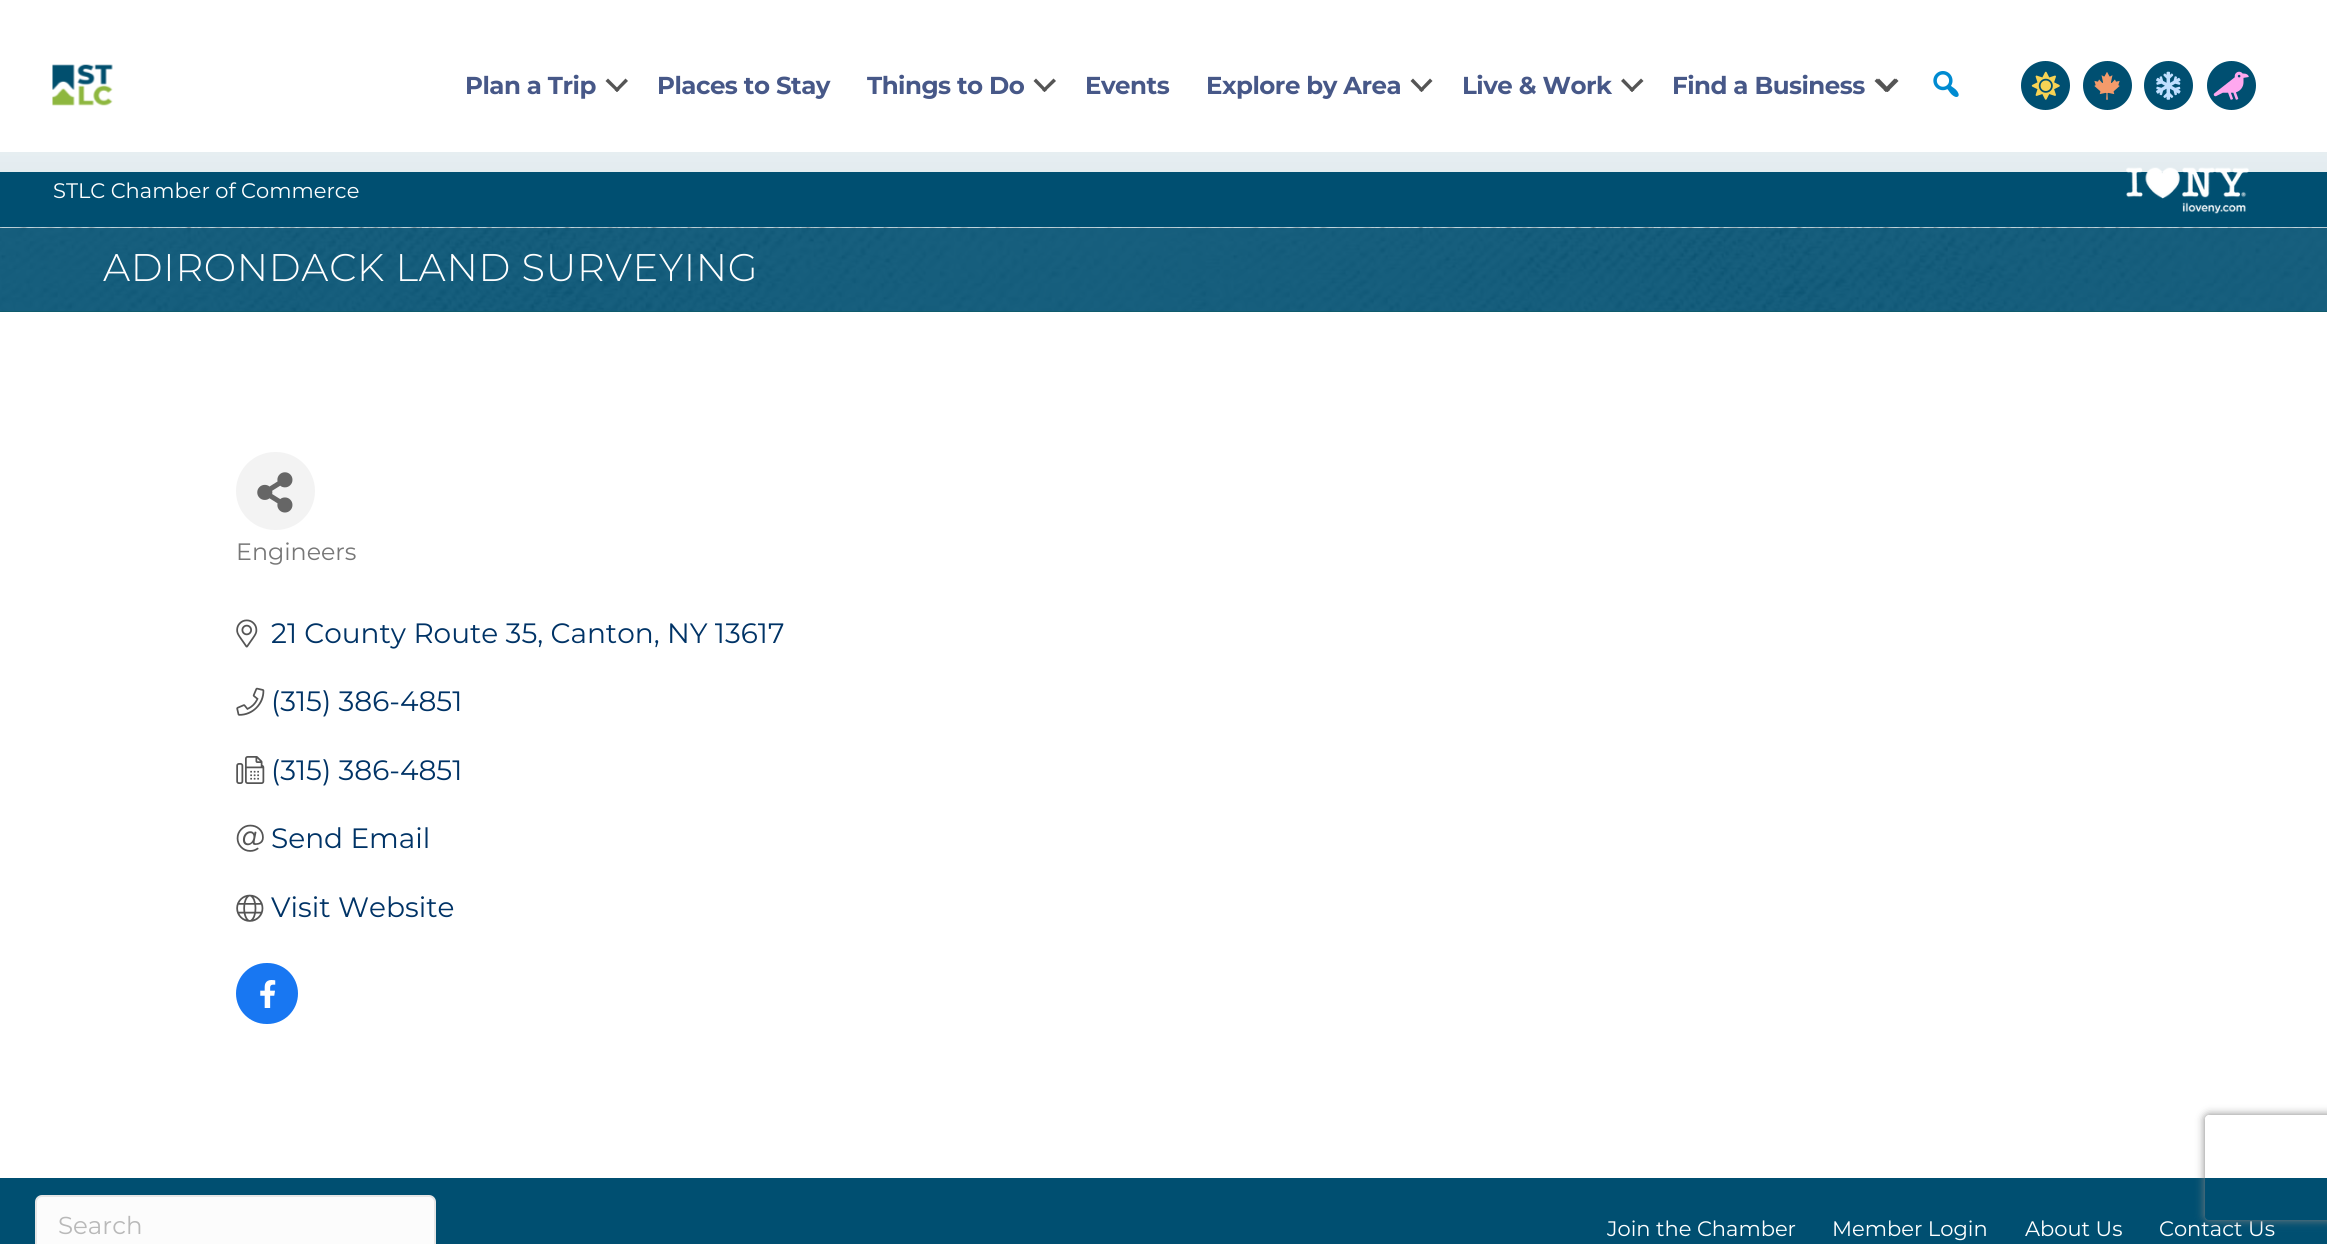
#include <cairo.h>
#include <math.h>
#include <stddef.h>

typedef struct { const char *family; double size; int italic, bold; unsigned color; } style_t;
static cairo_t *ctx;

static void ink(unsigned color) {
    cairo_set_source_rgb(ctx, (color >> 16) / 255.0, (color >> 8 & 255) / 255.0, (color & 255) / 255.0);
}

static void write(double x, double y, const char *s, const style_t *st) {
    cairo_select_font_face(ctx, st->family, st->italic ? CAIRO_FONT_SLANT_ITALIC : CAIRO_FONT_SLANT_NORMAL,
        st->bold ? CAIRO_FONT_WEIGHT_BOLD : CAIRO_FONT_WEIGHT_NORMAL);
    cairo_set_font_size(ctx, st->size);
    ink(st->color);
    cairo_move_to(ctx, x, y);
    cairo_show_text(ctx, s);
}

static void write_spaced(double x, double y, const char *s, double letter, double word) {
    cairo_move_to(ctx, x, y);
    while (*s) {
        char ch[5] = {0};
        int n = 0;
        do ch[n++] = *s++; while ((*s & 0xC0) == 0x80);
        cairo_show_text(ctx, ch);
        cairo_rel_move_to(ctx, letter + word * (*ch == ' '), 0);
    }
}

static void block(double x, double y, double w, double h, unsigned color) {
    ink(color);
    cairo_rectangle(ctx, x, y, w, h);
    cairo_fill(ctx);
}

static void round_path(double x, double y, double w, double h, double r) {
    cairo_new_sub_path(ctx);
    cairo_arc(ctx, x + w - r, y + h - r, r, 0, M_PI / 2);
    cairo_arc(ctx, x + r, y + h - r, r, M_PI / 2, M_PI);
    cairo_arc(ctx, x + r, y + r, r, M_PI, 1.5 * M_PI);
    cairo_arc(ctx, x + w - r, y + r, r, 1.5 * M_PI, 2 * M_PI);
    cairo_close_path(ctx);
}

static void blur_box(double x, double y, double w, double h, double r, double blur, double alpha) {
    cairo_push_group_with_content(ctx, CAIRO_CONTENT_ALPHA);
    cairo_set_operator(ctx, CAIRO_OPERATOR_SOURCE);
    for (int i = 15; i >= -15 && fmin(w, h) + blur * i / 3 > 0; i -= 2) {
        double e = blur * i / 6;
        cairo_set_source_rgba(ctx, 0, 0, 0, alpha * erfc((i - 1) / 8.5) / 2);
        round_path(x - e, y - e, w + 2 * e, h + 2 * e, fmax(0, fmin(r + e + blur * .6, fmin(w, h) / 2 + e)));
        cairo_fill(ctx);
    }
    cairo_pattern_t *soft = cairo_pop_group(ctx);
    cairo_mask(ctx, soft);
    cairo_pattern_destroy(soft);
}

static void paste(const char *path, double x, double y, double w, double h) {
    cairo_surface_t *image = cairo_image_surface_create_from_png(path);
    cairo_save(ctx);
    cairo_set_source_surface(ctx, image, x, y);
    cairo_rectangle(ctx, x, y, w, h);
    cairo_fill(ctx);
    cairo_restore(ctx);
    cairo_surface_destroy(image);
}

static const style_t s1 = {"Montserrat", 21, 0, 0, 0xffffff};
static const style_t s2 = {"Montserrat", 23.75, 0, 0, 0x777777};
static const style_t s3 = {"Montserrat", 28, 0, 0, 0x003366};
static const style_t s4 = {"Montserrat", 24.5, 0, 0, 0xb9b9b9};

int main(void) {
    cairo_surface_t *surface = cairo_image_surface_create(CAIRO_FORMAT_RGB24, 2327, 1244);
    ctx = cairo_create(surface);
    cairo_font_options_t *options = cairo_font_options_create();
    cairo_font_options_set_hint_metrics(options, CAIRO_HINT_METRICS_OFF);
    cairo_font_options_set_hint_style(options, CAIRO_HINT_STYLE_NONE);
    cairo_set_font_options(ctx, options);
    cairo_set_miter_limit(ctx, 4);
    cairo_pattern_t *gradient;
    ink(0xffffff);
    cairo_paint(ctx);
    block(0, 152, 2327, 76, 0x004f71);
    paste("pic7.png", 2126, 167, 123, 47);
    gradient = cairo_pattern_create_linear(1164, 0, 1164, 172);
    cairo_pattern_add_color_stop_rgba(gradient, 0, 1, 1, 1, 1);
    cairo_pattern_add_color_stop_rgba(gradient, 1, 1, 1, 1, 0.89);
    cairo_set_source(ctx, gradient);
    cairo_pattern_destroy(gradient);
    cairo_rectangle(ctx, 0, 152, 2327, 20);
    cairo_fill(ctx);
    paste("pic1.png", 52, 64, 61, 42);
    cairo_select_font_face(ctx, "Montserrat", CAIRO_FONT_SLANT_NORMAL, CAIRO_FONT_WEIGHT_BOLD);
    cairo_set_font_size(ctx, 24.5);
    ink(0x475888);
    write_spaced(465, 94, "Plan a Trip", -0.5, 0);
    ink(0x555555);
    cairo_new_path(ctx);
    cairo_move_to(ctx, 625.5, 78.5);
    cairo_line_to(ctx, 628, 81);
    cairo_line_to(ctx, 617, 92);
    cairo_line_to(ctx, 614.5, 90);
    cairo_close_path(ctx);
    cairo_fill(ctx);
    cairo_new_path(ctx);
    cairo_move_to(ctx, 608, 78.5);
    cairo_line_to(ctx, 619.5, 90);
    cairo_line_to(ctx, 617, 92);
    cairo_line_to(ctx, 605.5, 81);
    cairo_close_path(ctx);
    cairo_fill(ctx);
    ink(0x475888);
    write_spaced(657, 94, "Places to Stay", -0.5, 0);
    write_spaced(867, 94, "Things to Do", -0.5, 0);
    ink(0x555555);
    cairo_new_path(ctx);
    cairo_move_to(ctx, 1053.5, 78.5);
    cairo_line_to(ctx, 1056, 81);
    cairo_line_to(ctx, 1044.5, 92);
    cairo_line_to(ctx, 1042, 90);
    cairo_close_path(ctx);
    cairo_fill(ctx);
    cairo_new_path(ctx);
    cairo_move_to(ctx, 1036, 78.5);
    cairo_line_to(ctx, 1047, 90);
    cairo_line_to(ctx, 1044.5, 92);
    cairo_line_to(ctx, 1033.5, 81);
    cairo_close_path(ctx);
    cairo_fill(ctx);
    ink(0x475888);
    write_spaced(1085, 94, "Events", -0.5, 0);
    write_spaced(1206, 94, "Explore by Area", -0.5, 0);
    ink(0x555555);
    cairo_new_path(ctx);
    cairo_move_to(ctx, 1430, 78.5);
    cairo_line_to(ctx, 1432.5, 81);
    cairo_line_to(ctx, 1421.5, 92);
    cairo_line_to(ctx, 1419, 90);
    cairo_close_path(ctx);
    cairo_fill(ctx);
    cairo_new_path(ctx);
    cairo_move_to(ctx, 1413, 78.5);
    cairo_line_to(ctx, 1424, 90);
    cairo_line_to(ctx, 1421.5, 92);
    cairo_line_to(ctx, 1410.5, 81);
    cairo_close_path(ctx);
    cairo_fill(ctx);
    ink(0x475888);
    write_spaced(1462, 94, "Live & Work", -0.5, 0);
    ink(0x555555);
    cairo_new_path(ctx);
    cairo_move_to(ctx, 1641, 78.5);
    cairo_line_to(ctx, 1643.5, 81);
    cairo_line_to(ctx, 1632, 92);
    cairo_line_to(ctx, 1629.5, 90);
    cairo_close_path(ctx);
    cairo_fill(ctx);
    cairo_new_path(ctx);
    cairo_move_to(ctx, 1623.5, 78.5);
    cairo_line_to(ctx, 1634.5, 90);
    cairo_line_to(ctx, 1632, 92);
    cairo_line_to(ctx, 1621, 81);
    cairo_close_path(ctx);
    cairo_fill(ctx);
    ink(0x475888);
    write_spaced(1672, 94, "Find a Business", -0.5, 0);
    ink(0x555555);
    cairo_new_path(ctx);
    cairo_move_to(ctx, 1894.5, 78.5);
    cairo_line_to(ctx, 1897, 81);
    cairo_line_to(ctx, 1886, 92);
    cairo_line_to(ctx, 1883.5, 90);
    cairo_close_path(ctx);
    cairo_fill(ctx);
    cairo_new_path(ctx);
    cairo_move_to(ctx, 1877, 78.5);
    cairo_line_to(ctx, 1888, 90);
    cairo_line_to(ctx, 1886, 92);
    cairo_line_to(ctx, 1874.5, 81);
    cairo_close_path(ctx);
    cairo_fill(ctx);
    cairo_new_path(ctx);
    cairo_move_to(ctx, 1896, 78.5);
    cairo_line_to(ctx, 1898.5, 81);
    cairo_line_to(ctx, 1887.5, 92);
    cairo_line_to(ctx, 1885, 90);
    cairo_close_path(ctx);
    cairo_fill(ctx);
    cairo_new_path(ctx);
    cairo_move_to(ctx, 1879, 78.5);
    cairo_line_to(ctx, 1890, 90);
    cairo_line_to(ctx, 1887.5, 92);
    cairo_line_to(ctx, 1876.5, 81);
    cairo_close_path(ctx);
    cairo_fill(ctx);
    paste("pic2.png", 1933, 71, 26, 26);
    ink(0x004f71);
    cairo_arc(ctx, 2045.5, 85.5, 24.5, 0, 2 * M_PI);
    cairo_fill(ctx);
    paste("pic3.png", 2031, 71, 29, 29);
    cairo_arc(ctx, 2107.5, 85.5, 24.5, 0, 2 * M_PI);
    cairo_fill(ctx);
    paste("pic4.png", 2094, 72, 26, 28);
    cairo_arc(ctx, 2168.5, 85.5, 24.5, 0, 2 * M_PI);
    cairo_fill(ctx);
    paste("pic5.png", 2156, 71, 25, 29);
    cairo_arc(ctx, 2231.5, 85.5, 24.5, 0, 2 * M_PI);
    cairo_fill(ctx);
    paste("pic6.png", 2213, 71, 36, 29);
    write(53, 198, "STLC Chamber of Commerce", &s1);
    block(0, 311, 2327, 1, 0x0e5b67);
    paste("pic8.png", 0, 227, 2327, 85);
    cairo_select_font_face(ctx, "Montserrat Light", CAIRO_FONT_SLANT_NORMAL, CAIRO_FONT_WEIGHT_NORMAL);
    cairo_set_font_size(ctx, 38.5);
    ink(0xffffff);
    write_spaced(103, 281, "ADIRONDACK LAND SURVEYING", 0.7, 0);
    ink(0xf3f3f3);
    round_path(236, 452, 79, 78, 39);
    cairo_fill(ctx);
    paste("pic9.png", 257, 472, 36, 41);
    write(236, 560, "Engineers", &s2);
    paste("pic10.png", 236, 619, 22, 29);
    write(271, 643, "21 County Route 35, Canton, NY 13617", &s3);
    paste("pic11.png", 236, 687, 29, 29);
    write(271, 711, "(315) 386-4851", &s3);
    paste("pic12.png", 236, 756, 29, 28);
    write(271, 780, "(315) 386-4851", &s3);
    paste("pic13.png", 236, 824, 28, 28);
    write(271, 848, "Send Email", &s3);
    paste("pic14.png", 236, 894, 28, 28);
    write(271, 917, "Visit Website", &s3);
    ink(0x1877f2);
    round_path(236, 963, 62, 61, 30.5);
    cairo_fill(ctx);
    paste("pic15.png", 260, 980, 16, 28);
    block(0, 1178, 2327, 66, 0x004f71);
    ink(0xfcfcfc);
    round_path(36, 1196, 399, 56, 6);
    cairo_fill_preserve(ctx);
    ink(0xe6e6e6);
    cairo_stroke(ctx);
    write(58, 1234, "Search", &s4);
    write(1607, 1236, "Join the Chamber", &s1);
    write(1832, 1236, "Member Login", &s1);
    write(2025, 1236, "About Us", &s1);
    write(2159, 1236, "Contact Us", &s1);
    cairo_save(ctx);
    cairo_set_fill_rule(ctx, CAIRO_FILL_RULE_EVEN_ODD);
    cairo_new_path(ctx);
    cairo_move_to(ctx, 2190, 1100);
    cairo_line_to(ctx, 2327, 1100);
    cairo_line_to(ctx, 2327, 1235);
    cairo_line_to(ctx, 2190, 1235);
    cairo_close_path(ctx);
    cairo_move_to(ctx, 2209, 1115);
    cairo_line_to(ctx, 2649, 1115);
    cairo_curve_to(ctx, 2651, 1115, 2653, 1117, 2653, 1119);
    cairo_line_to(ctx, 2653, 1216);
    cairo_curve_to(ctx, 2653, 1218, 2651, 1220, 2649, 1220);
    cairo_line_to(ctx, 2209, 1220);
    cairo_curve_to(ctx, 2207, 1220, 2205, 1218, 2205, 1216);
    cairo_line_to(ctx, 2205, 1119);
    cairo_curve_to(ctx, 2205, 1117, 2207, 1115, 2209, 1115);
    cairo_close_path(ctx);
    cairo_clip(ctx);
    ink(0x808080);
    blur_box(2205, 1115, 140, 105, 4, 4.5, 1);
    cairo_restore(ctx);
    cairo_surface_write_to_png(surface, "screenshot.png");
    cairo_font_options_destroy(options);
    cairo_destroy(ctx);
    cairo_surface_destroy(surface);
    return 0;
}
